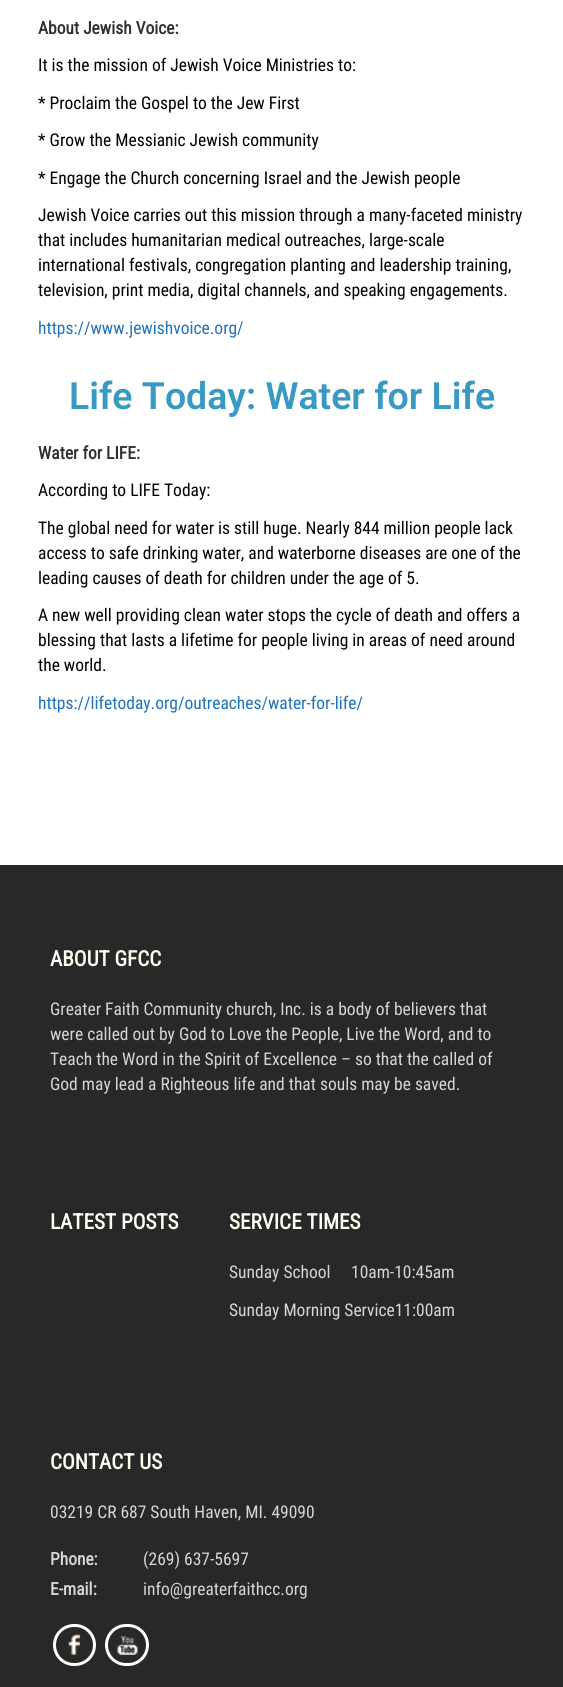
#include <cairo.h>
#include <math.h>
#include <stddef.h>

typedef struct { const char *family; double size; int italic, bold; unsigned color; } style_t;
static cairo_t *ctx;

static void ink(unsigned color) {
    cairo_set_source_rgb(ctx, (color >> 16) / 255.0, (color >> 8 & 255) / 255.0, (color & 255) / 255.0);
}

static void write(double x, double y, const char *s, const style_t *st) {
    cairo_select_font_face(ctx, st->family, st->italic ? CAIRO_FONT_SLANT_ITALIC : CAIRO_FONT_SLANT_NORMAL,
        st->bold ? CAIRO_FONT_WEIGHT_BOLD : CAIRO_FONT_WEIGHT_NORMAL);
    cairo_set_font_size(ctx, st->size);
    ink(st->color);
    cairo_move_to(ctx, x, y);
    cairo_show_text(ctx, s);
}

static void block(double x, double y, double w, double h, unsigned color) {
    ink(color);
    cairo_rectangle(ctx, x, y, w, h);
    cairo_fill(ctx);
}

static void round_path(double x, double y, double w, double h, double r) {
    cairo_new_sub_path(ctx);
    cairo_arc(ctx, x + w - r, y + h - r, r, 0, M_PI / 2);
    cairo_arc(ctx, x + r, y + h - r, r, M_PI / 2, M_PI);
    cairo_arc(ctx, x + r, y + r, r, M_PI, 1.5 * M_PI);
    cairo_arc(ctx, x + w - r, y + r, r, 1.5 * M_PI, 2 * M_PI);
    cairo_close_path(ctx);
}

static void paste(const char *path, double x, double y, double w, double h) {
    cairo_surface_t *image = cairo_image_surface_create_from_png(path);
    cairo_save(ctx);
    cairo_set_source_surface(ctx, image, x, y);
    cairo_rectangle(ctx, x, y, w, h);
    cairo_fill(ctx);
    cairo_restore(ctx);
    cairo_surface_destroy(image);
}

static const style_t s1 = {"Roboto Condensed", 17.5, 0, 1, 0x303030};
static const style_t s2 = {"Roboto Condensed", 17.5, 0, 0, 0x000000};
static const style_t s3 = {"Roboto Condensed", 17.5, 0, 0, 0x1e73be};
static const style_t s4 = {"Roboto SemiBold", 37.5, 0, 0, 0x389ac3};
static const style_t s5 = {"Roboto Condensed", 21.25, 0, 1, 0xfdfdf1};
static const style_t s6 = {"Roboto Condensed", 17.5, 0, 0, 0xd6d6d6};
static const style_t s7 = {"Roboto Condensed", 17.5, 0, 1, 0xd6d6d6};

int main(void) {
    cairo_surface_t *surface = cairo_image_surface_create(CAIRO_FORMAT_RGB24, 563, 1687);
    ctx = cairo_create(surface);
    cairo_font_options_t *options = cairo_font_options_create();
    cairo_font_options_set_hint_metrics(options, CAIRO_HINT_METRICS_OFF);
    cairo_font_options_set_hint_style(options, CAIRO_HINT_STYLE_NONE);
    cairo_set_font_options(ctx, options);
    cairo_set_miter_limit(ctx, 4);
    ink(0xffffff);
    cairo_paint(ctx);
    write(38, 34, "About Jewish Voice:", &s1);
    write(38, 71, "It is the mission of Jewish Voice Ministries to:", &s2);
    write(38, 109, "* Proclaim the Gospel to the Jew First", &s2);
    write(38, 146, "* Grow the Messianic Jewish community", &s2);
    write(38, 184, "* Engage the Church concerning Israel and the Jewish people", &s2);
    write(38, 221, "Jewish Voice carries out this mission through a many-faceted ministry", &s2);
    write(38, 246, "that includes humanitarian medical outreaches, large-scale", &s2);
    write(38, 271, "international festivals, congregation planting and leadership training,", &s2);
    write(38, 296, "television, print media, digital channels, and speaking engagements.", &s2);
    write(38, 334, "https://www.jewishvoice.org/", &s3);
    write(69, 409, "Life Today: Water for Life", &s4);
    write(38, 459, "Water for LIFE:", &s1);
    write(38, 496, "According to LIFE Today:", &s2);
    write(38, 534, "The global need for water is still huge. Nearly 844 million people lack", &s2);
    write(38, 559, "access to safe drinking water, and waterborne diseases are one of the", &s2);
    write(38, 584, "leading causes of death for children under the age of 5.", &s2);
    write(38, 621, "A new well providing clean water stops the cycle of death and offers a", &s2);
    write(38, 646, "blessing that lasts a lifetime for people living in areas of need around", &s2);
    write(38, 671, "the world.", &s2);
    write(38, 709, "https://lifetoday.org/outreaches/water-for-life/", &s3);
    block(0, 865, 563, 822, 0x282828);
    write(50, 966, "ABOUT GFCC", &s5);
    write(50, 1015, "Greater Faith Community church, Inc. is a body of believers that", &s6);
    write(50, 1040, "were called out by God to Love the People, Live the Word, and to", &s6);
    write(50, 1065, "Teach the Word in the Spirit of Excellence – so that the called of", &s6);
    write(50, 1090, "God may lead a Righteous life and that souls may be saved.", &s6);
    write(50, 1229, "LATEST POSTS", &s5);
    write(229, 1229, "SERVICE TIMES", &s5);
    write(229, 1278, "Sunday School", &s6);
    write(351, 1278, "10am-10:45am", &s6);
    write(229, 1316, "Sunday Morning Service11:00am", &s6);
    write(50, 1469, "CONTACT US", &s5);
    write(50, 1518, "03219 CR 687 South Haven, MI. 49090", &s6);
    write(50, 1565, "Phone:", &s7);
    write(143, 1565, "(269) 637-5697", &s6);
    write(50, 1595, "E-mail:", &s7);
    write(143, 1595, "info@greaterfaithcc.org", &s6);
    paste("pic1.png", 68, 1634, 12, 21);
    round_path(54.5, 1625.5, 40, 39, 19.5);
    ink(0xffffff);
    cairo_set_line_width(ctx, 3);
    cairo_stroke(ctx);
    paste("pic2.png", 117, 1636, 21, 19);
    round_path(106.5, 1625.5, 41, 39, 19.5);
    cairo_stroke(ctx);
    cairo_surface_write_to_png(surface, "screenshot.png");
    cairo_font_options_destroy(options);
    cairo_destroy(ctx);
    cairo_surface_destroy(surface);
    return 0;
}
